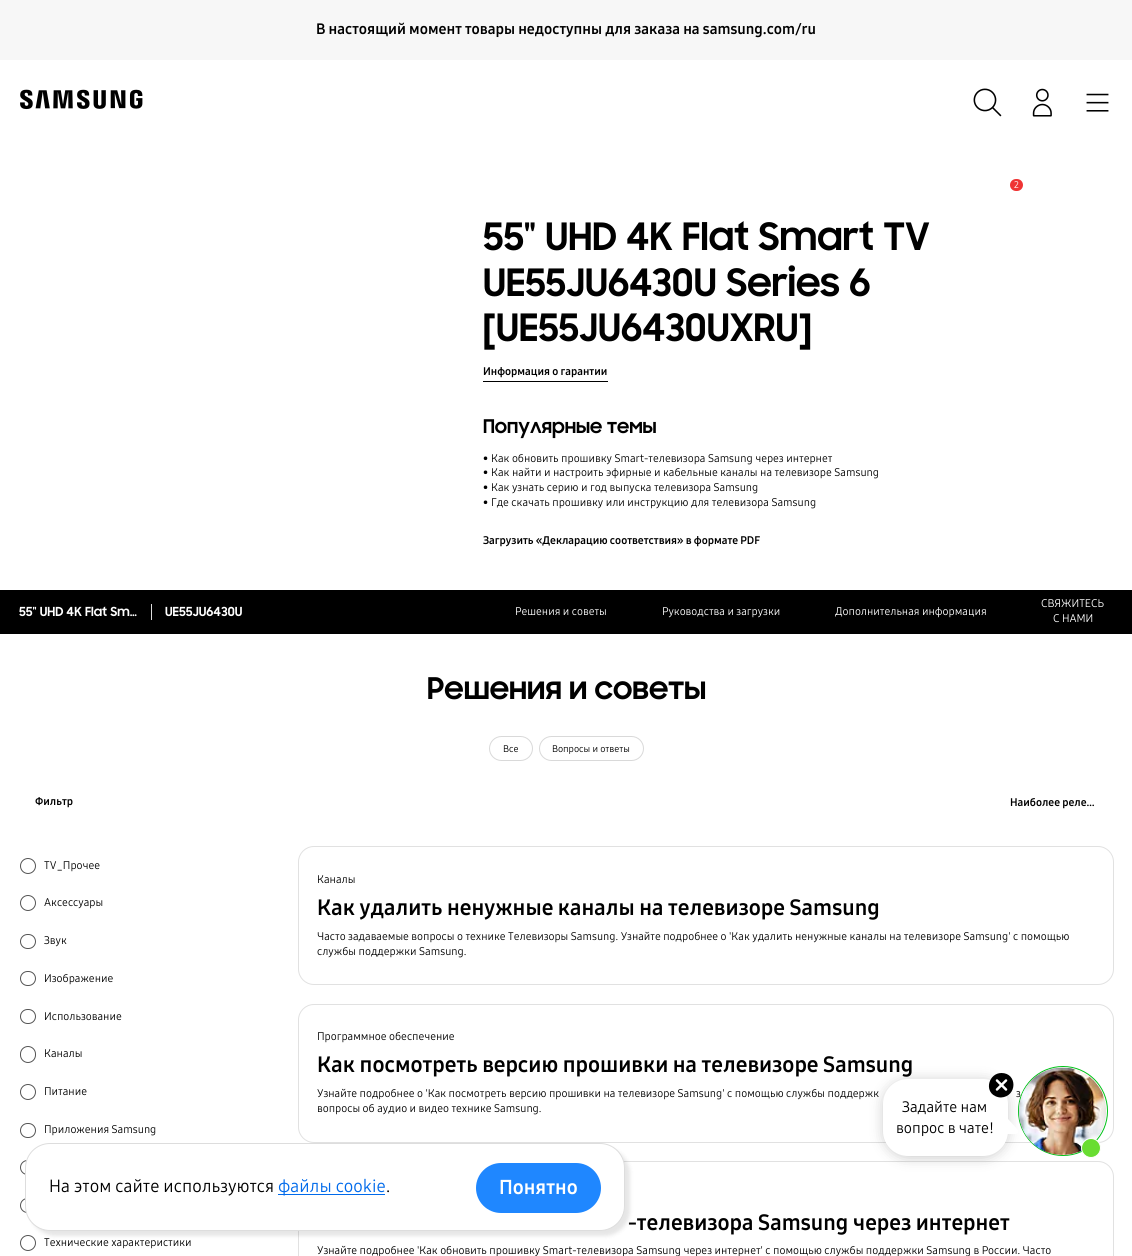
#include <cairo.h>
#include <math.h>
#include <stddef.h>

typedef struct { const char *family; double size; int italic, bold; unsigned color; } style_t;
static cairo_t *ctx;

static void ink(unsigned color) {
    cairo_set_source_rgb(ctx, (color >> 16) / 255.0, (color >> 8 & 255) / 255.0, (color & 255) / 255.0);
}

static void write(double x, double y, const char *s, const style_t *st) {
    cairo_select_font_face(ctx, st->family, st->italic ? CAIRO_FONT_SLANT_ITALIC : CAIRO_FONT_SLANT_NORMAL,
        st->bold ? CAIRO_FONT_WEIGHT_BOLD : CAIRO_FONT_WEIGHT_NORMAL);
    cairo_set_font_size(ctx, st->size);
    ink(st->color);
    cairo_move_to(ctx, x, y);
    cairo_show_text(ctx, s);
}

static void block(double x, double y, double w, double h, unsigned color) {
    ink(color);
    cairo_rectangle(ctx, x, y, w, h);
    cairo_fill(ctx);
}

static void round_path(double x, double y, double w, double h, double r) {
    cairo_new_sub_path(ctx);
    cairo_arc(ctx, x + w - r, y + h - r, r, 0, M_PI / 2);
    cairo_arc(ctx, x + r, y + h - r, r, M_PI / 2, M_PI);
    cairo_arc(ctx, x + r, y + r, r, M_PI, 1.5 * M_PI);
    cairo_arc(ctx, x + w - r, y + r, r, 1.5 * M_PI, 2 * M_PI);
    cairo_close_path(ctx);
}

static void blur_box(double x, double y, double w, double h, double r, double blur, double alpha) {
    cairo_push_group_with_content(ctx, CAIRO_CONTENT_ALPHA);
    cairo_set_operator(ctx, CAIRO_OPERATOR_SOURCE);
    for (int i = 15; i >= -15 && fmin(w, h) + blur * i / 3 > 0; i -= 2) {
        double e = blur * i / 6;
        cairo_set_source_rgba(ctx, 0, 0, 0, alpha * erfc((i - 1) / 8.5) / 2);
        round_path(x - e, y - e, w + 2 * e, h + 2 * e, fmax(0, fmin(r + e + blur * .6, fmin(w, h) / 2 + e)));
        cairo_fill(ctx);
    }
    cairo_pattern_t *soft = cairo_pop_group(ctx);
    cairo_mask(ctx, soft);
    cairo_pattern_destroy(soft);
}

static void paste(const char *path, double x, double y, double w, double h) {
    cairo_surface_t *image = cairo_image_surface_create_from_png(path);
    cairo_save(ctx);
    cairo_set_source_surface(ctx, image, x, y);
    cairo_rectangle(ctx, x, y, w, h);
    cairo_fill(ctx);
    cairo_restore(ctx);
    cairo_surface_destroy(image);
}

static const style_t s1 = {"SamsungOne", 15, 0, 1, 0x000000};
static const style_t s2 = {"SamsungOne", 9.5, 0, 0, 0xffffff};
static const style_t s3 = {"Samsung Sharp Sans", 37.75, 0, 1, 0x000000};
static const style_t s4 = {"SamsungOne", 11, 0, 1, 0x000000};
static const style_t s5 = {"Samsung Sharp Sans", 18.9, 0, 1, 0x000000};
static const style_t s6 = {"SamsungOne", 11, 0, 0, 0x000000};
static const style_t s7 = {"Samsung Sharp Sans", 12.5, 0, 1, 0xffffff};
static const style_t s8 = {"SamsungOne", 11, 0, 0, 0xffffff};
static const style_t s9 = {"Samsung Sharp Sans", 29.9, 0, 1, 0x000000};
static const style_t s10 = {"SamsungOne", 9.5, 0, 0, 0x000000};
static const style_t s11 = {"SamsungOne", 22, 0, 1, 0x000000};
static const style_t s12 = {"SamsungOne", 15, 0, 0, 0x000000};
static const style_t s13 = {"SamsungOne", 17.5, 0, 0, 0x000000};
static const style_t s14 = {"SamsungOne", 17.5, 0, 0, 0x006aeb};
static const style_t s15 = {"SamsungOne", 20, 0, 1, 0xffffff};

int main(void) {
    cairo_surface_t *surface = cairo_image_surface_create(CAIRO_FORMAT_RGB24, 1132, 1256);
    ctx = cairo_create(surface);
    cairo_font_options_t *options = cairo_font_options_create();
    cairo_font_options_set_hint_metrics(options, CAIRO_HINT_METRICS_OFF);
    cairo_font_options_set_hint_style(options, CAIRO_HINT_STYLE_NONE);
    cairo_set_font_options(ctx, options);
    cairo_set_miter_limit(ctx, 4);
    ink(0xffffff);
    cairo_paint(ctx);
    block(0, 0, 1132, 60, 0xf7f7f7);
    write(316, 34, "В настоящий момент товары недоступны для заказа на samsung.com/ru", &s1);
    paste("pic1.png", 20, 89, 123, 21);
    paste("pic2.png", 973, 88, 29, 29);
    paste("pic3.png", 1032, 88, 20, 29);
    paste("pic4.png", 1086, 93, 23, 19);
    ink(0xef3434);
    round_path(1010, 179, 13, 12, 6);
    cairo_fill(ctx);
    write(1014, 188, "2", &s2);
    write(483, 250, "55\" UHD 4K Flat Smart TV", &s3);
    write(483, 296, "UE55JU6430U Series 6", &s3);
    write(483, 341, "[UE55JU6430UXRU]", &s3);
    write(483, 375, "Информация о гарантии", &s4);
    block(483, 381, 125, 1, 0x000000);
    write(483, 433, "Популярные темы", &s5);
    write(483, 462, "•", &s6);
    write(491, 462, "Как обновить прошивку Smart-телевизора Samsung через интернет", &s6);
    write(483, 476, "•", &s6);
    write(491, 476, "Как найти и настроить эфирные и кабельные каналы на телевизоре Samsung", &s6);
    write(483, 491, "•", &s6);
    write(491, 491, "Как узнать серию и год выпуска телевизора Samsung", &s6);
    write(483, 506, "•", &s6);
    write(491, 506, "Где скачать прошивку или инструкцию для телевизора Samsung", &s6);
    write(483, 544, "Загрузить «Декларацию соответствия» в формате PDF", &s4);
    block(0, 590, 1132, 44, 0x000000);
    write(19, 616, "55\" UHD 4K Flat Sm…", &s7);
    block(151, 604, 1, 16, 0xdddddd);
    write(165, 616, "UE55JU6430U", &s7);
    write(515, 615, "Решения и советы", &s8);
    write(662, 615, "Руководства и загрузки", &s8);
    write(835, 615, "Дополнительная информация", &s8);
    write(1041, 607, "СВЯЖИТЕСЬ", &s8);
    write(1053, 622, "С НАМИ", &s8);
    write(427, 699, "Решения и советы", &s9);
    round_path(489.5, 736.5, 43, 24, 12);
    ink(0xd9d9d9);
    cairo_set_line_width(ctx, 1);
    cairo_stroke(ctx);
    write(503, 752, "Все", &s10);
    round_path(539.5, 736.5, 104, 24, 12);
    ink(0xd9d9d9);
    cairo_stroke(ctx);
    write(552, 752, "Вопросы и ответы", &s10);
    write(35, 805, "Фильтр", &s4);
    write(1010, 806, "Наиболее реле…", &s4);
    cairo_new_path(ctx);
    cairo_arc(ctx, 28, 866, 7.5, 0, 2 * M_PI);
    ink(0x555555);
    cairo_stroke(ctx);
    write(44, 869, "TV_Прочее", &s6);
    cairo_new_path(ctx);
    cairo_arc(ctx, 28, 903, 7.5, 0, 2 * M_PI);
    ink(0x555555);
    cairo_stroke(ctx);
    write(44, 906, "Аксессуары", &s6);
    round_path(20.5, 934.5, 15, 14, 7);
    ink(0x555555);
    cairo_stroke(ctx);
    write(44, 944, "Звук", &s6);
    round_path(20.5, 971.5, 15, 14, 7);
    ink(0x555555);
    cairo_stroke(ctx);
    write(44, 982, "Изображение", &s6);
    round_path(20.5, 1009.5, 15, 14, 7);
    ink(0x555555);
    cairo_stroke(ctx);
    write(44, 1020, "Использование", &s6);
    round_path(20.5, 1046.5, 15, 16, 7.5);
    ink(0x555555);
    cairo_stroke(ctx);
    write(44, 1057, "Каналы", &s6);
    cairo_new_path(ctx);
    cairo_arc(ctx, 28, 1092, 7.5, 0, 2 * M_PI);
    ink(0x555555);
    cairo_stroke(ctx);
    write(44, 1095, "Питание", &s6);
    round_path(20.5, 1123.5, 15, 14, 7);
    ink(0x555555);
    cairo_stroke(ctx);
    write(44, 1133, "Приложения Samsung", &s6);
    round_path(20.5, 1160.5, 15, 14, 7);
    ink(0x555555);
    cairo_stroke(ctx);
    round_path(20.5, 1198.5, 15, 14, 7);
    cairo_stroke(ctx);
    cairo_arc(ctx, 28, 1243, 7.5, 0, 2 * M_PI);
    cairo_stroke(ctx);
    write(44, 1246, "Технические характеристики", &s6);
    round_path(298.5, 846.5, 815, 138, 15.5);
    ink(0xe1e1e1);
    cairo_stroke(ctx);
    write(317, 883, "Каналы", &s6);
    write(317, 915, "Как удалить ненужные каналы на телевизоре Samsung", &s11);
    write(317, 940, "Часто задаваемые вопросы о технике Телевизоры Samsung. Узнайте подробнее о 'Как удалить ненужные каналы на телевизоре Samsung' с помощью", &s6);
    write(317, 955, "службы поддержки Samsung.", &s6);
    round_path(298.5, 1004.5, 815, 138, 15.5);
    ink(0xe1e1e1);
    cairo_stroke(ctx);
    write(317, 1040, "Программное обеспечение", &s6);
    write(317, 1072, "Как посмотреть версию прошивки на телевизоре Samsung", &s11);
    write(317, 1097, "Узнайте подробнее о 'Как посмотреть версию прошивки на телевизоре Samsung' с помощью службы поддержк", &s6);
    write(1016, 1097, "з", &s6);
    write(317, 1112, "вопросы об аудио и видео технике Samsung.", &s6);
    round_path(298.5, 1161.5, 815, 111, 15.5);
    ink(0xe1e1e1);
    cairo_stroke(ctx);
    write(628, 1230, "-телевизора Samsung через интернет", &s11);
    write(317, 1254, "Узнайте подробнее 'Как обновить прошивку Smart-телевизора Samsung через интернет' с помощью службы поддержки Samsung в России. Часто", &s6);
    cairo_new_path(ctx);
    cairo_arc(ctx, 1063, 1111, 44.5, 0, 2 * M_PI);
    ink(0x00c217);
    cairo_stroke(ctx);
    paste("pic5.png", 1018, 1067, 88, 88);
    ink(0x000000);
    blur_box(883, 1080, 125, 78, 25, 6.5, 0.2);
    ink(0xffffff);
    round_path(883, 1079, 125, 77, 25);
    cairo_fill(ctx);
    ink(0x000000);
    cairo_new_path(ctx);
    cairo_move_to(ctx, 1001.5, 1073);
    cairo_curve_to(ctx, 1017.5, 1073, 1017.5, 1096.5, 1001, 1097.5);
    cairo_curve_to(ctx, 999, 1097.5, 997, 1097, 995, 1096);
    cairo_curve_to(ctx, 984, 1090.5, 989, 1073, 1001.5, 1073);
    cairo_close_path(ctx);
    cairo_fill(ctx);
    cairo_new_path(ctx);
    cairo_move_to(ctx, 997, 1089.5);
    cairo_line_to(ctx, 1006, 1080.5);
    cairo_move_to(ctx, 997, 1080.5);
    cairo_line_to(ctx, 1006, 1089.5);
    ink(0xffffff);
    cairo_set_line_width(ctx, 2.5);
    cairo_set_line_cap(ctx, CAIRO_LINE_CAP_ROUND);
    cairo_stroke(ctx);
    write(902, 1112, "Задайте нам", &s12);
    write(896, 1133, "вопрос в чате!", &s12);
    cairo_save(ctx);
    cairo_rectangle(ctx, 998, 1110, 21, 24);
    cairo_clip(ctx);
    ink(0xffffff);
    cairo_new_path(ctx);
    cairo_move_to(ctx, 1000, 1110);
    cairo_line_to(ctx, 1017.5, 1129.5);
    cairo_curve_to(ctx, 1019, 1131, 1018, 1134, 1015.5, 1134);
    cairo_line_to(ctx, 997.5, 1134);
    cairo_close_path(ctx);
    cairo_fill(ctx);
    cairo_restore(ctx);
    ink(0x68dd31);
    cairo_arc(ctx, 1091, 1148, 9.5, 0, 2 * M_PI);
    cairo_fill_preserve(ctx);
    ink(0xffffff);
    cairo_set_line_width(ctx, 1);
    cairo_set_line_cap(ctx, CAIRO_LINE_CAP_BUTT);
    cairo_stroke(ctx);
    ink(0x000000);
    blur_box(30, 1148, 600, 88, 25, 2, 0.1);
    ink(0xffffff);
    round_path(25.5, 1143.5, 599, 87, 24.5);
    cairo_fill_preserve(ctx);
    ink(0xdddddd);
    cairo_stroke(ctx);
    write(49, 1192, "На этом сайте используются", &s13);
    block(278, 1194, 107, 1, 0x006aeb);
    write(278, 1192, "файлы cookie", &s14);
    write(386, 1192, ".", &s13);
    ink(0x1f87ff);
    round_path(476, 1163, 125, 50, 25);
    cairo_fill(ctx);
    write(499, 1194, "Понятно", &s15);
    cairo_surface_write_to_png(surface, "screenshot.png");
    cairo_font_options_destroy(options);
    cairo_destroy(ctx);
    cairo_surface_destroy(surface);
    return 0;
}
